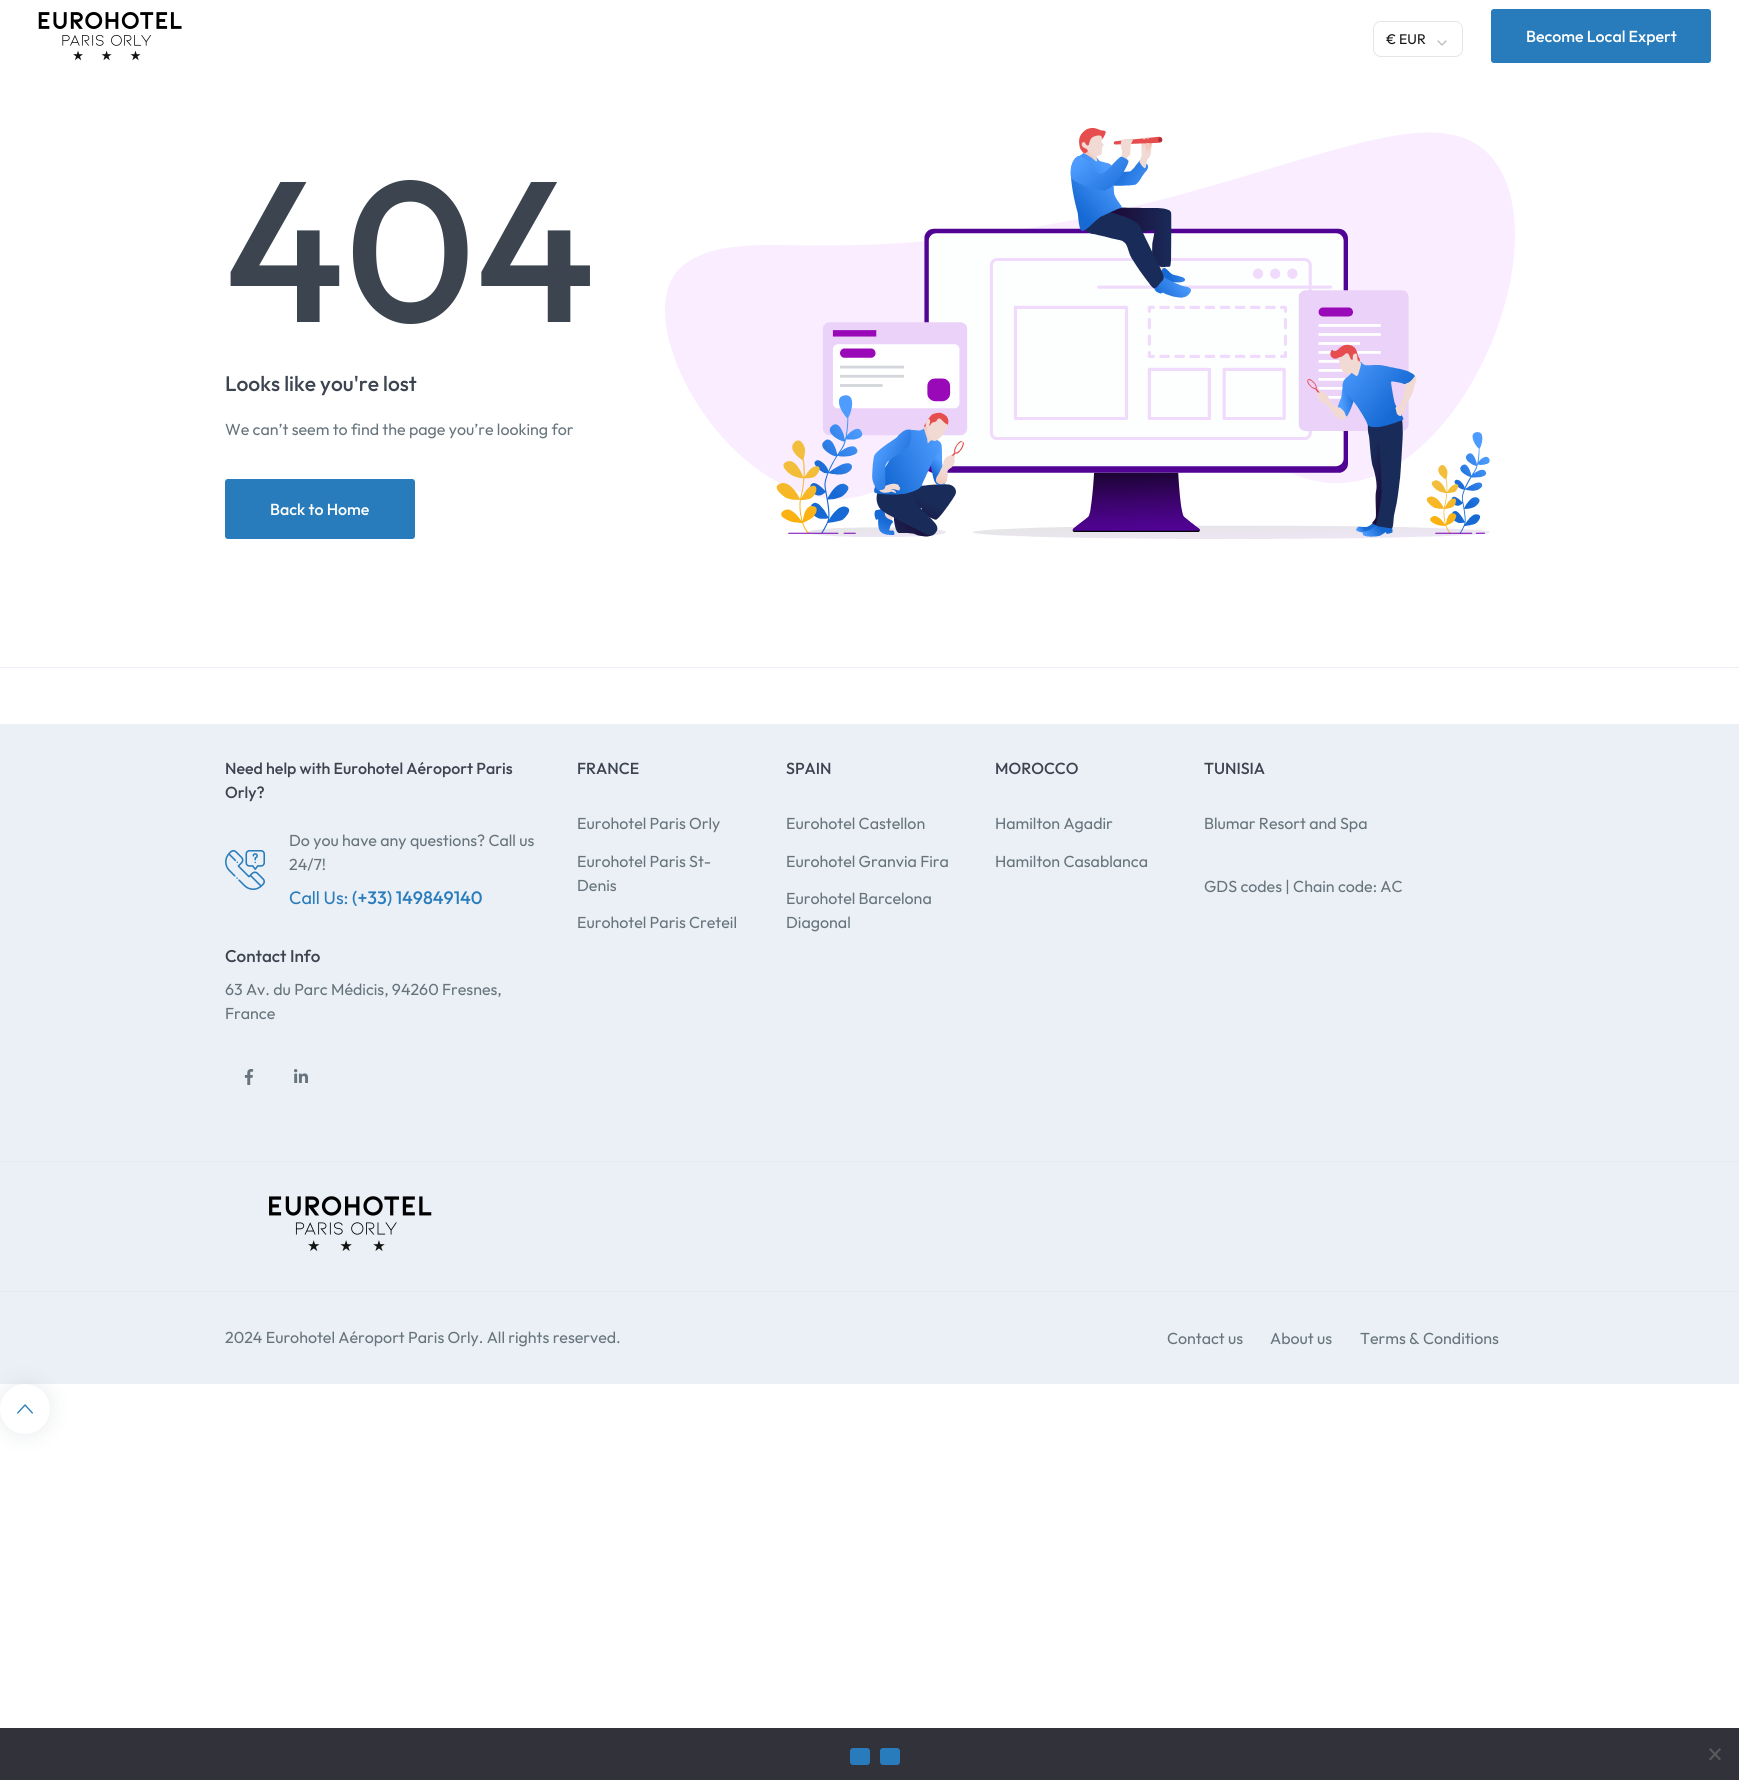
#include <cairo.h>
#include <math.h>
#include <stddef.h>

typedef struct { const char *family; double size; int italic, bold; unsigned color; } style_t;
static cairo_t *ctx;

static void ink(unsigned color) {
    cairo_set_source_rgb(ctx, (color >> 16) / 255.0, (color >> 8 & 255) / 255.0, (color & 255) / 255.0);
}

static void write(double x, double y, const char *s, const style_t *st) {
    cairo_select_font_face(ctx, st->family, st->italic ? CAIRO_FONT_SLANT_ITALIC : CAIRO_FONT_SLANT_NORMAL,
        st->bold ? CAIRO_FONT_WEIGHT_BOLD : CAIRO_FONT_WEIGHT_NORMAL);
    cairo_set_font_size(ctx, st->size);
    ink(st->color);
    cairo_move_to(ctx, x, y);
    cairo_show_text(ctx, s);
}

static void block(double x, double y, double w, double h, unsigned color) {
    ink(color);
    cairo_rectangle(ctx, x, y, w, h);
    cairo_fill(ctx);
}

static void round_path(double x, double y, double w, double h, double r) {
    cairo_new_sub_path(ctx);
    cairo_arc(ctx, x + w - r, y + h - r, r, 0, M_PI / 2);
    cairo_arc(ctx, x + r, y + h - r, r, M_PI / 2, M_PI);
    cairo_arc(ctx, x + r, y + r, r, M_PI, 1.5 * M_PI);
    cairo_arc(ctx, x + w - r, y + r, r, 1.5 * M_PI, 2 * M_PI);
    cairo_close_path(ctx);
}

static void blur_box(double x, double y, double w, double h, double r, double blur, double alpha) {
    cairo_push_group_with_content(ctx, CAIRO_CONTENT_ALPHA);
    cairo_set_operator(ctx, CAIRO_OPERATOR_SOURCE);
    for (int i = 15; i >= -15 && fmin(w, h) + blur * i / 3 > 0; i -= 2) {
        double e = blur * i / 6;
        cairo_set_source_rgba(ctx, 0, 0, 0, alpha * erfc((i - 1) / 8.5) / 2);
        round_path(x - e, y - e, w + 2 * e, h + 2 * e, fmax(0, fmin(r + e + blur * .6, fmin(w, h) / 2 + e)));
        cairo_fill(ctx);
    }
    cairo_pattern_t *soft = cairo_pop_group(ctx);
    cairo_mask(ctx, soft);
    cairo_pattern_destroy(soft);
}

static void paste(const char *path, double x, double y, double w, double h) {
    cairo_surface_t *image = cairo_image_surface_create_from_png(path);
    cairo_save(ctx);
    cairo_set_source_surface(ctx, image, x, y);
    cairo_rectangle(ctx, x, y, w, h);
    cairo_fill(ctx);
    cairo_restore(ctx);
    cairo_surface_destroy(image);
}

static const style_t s1 = {"Outfit", 14, 0, 0, 0x151515};
static const style_t s2 = {"Outfit Medium", 16, 0, 0, 0xffffff};
static const style_t s3 = {"Outfit Medium", 200, 0, 0, 0x3b444f};
static const style_t s4 = {"Outfit Medium", 21, 0, 0, 0x3b444f};
static const style_t s5 = {"Outfit", 16, 0, 0, 0x67747c};
static const style_t s6 = {"Outfit Medium", 16, 0, 0, 0x3b444f};
static const style_t s7 = {"Outfit", 18, 0, 0, 0x297cbb};
static const style_t s8 = {"Outfit Medium", 18, 0, 0, 0x297cbb};
static const style_t s9 = {"Outfit Medium", 17, 0, 0, 0x3b444f};

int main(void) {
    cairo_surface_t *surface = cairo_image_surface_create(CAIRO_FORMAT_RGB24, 1739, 1780);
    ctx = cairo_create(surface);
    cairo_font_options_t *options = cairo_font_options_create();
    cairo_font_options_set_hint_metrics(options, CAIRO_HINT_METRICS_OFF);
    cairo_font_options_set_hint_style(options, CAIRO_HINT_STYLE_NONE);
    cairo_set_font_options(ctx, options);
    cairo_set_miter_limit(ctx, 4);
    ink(0xffffff);
    cairo_paint(ctx);
    paste("pic1.png", 38, 12, 144, 49);
    round_path(1373.5, 21.5, 89, 35, 7.5);
    ink(0xe5e5e5);
    cairo_set_line_width(ctx, 1);
    cairo_stroke(ctx);
    write(1386, 44, "€ EUR", &s1);
    cairo_new_path(ctx);
    cairo_move_to(ctx, 1438, 41);
    cairo_line_to(ctx, 1442, 45);
    cairo_line_to(ctx, 1446, 41);
    ink(0xb9b9b9);
    cairo_set_line_width(ctx, 1.3);
    cairo_set_line_cap(ctx, CAIRO_LINE_CAP_ROUND);
    cairo_set_line_join(ctx, CAIRO_LINE_JOIN_ROUND);
    cairo_stroke(ctx);
    ink(0x297cbb);
    round_path(1491.5, 9.5, 219, 53, 2.5);
    cairo_fill_preserve(ctx);
    cairo_set_line_width(ctx, 1);
    cairo_set_line_cap(ctx, CAIRO_LINE_CAP_BUTT);
    cairo_set_line_join(ctx, CAIRO_LINE_JOIN_MITER);
    cairo_stroke(ctx);
    write(1526, 42, "Become Local Expert", &s2);
    block(0, 667, 1739, 1, 0xebf0f7);
    write(225, 322, "404", &s3);
    write(225, 391, "Looks like you're lost", &s4);
    write(225, 435, "We can’t seem to find the page you’re looking for", &s5);
    ink(0x297cbb);
    round_path(225.5, 479.5, 189, 59, 2.5);
    cairo_fill_preserve(ctx);
    cairo_stroke(ctx);
    write(270, 515, "Back to Home", &s2);
    paste("pic2.png", 665, 128, 850, 411);
    block(0, 724, 1739, 660, 0xebf0f7);
    write(225, 774, "Need help with Eurohotel Aéroport Paris", &s6);
    write(225, 798, "Orly?", &s6);
    paste("pic3.png", 225, 850, 40, 40);
    write(289, 846, "Do you have any questions? Call us", &s5);
    write(289, 870, "24/7!", &s5);
    write(289, 904, "Call Us:", &s7);
    write(352, 904, "(+33) 149849140", &s8);
    write(225, 962, "Contact Info", &s9);
    write(225, 995, "63 Av. du Parc Médicis, 94260 Fresnes,", &s5);
    write(225, 1019, "France", &s5);
    paste("pic4.png", 244, 1069, 10, 16);
    paste("pic5.png", 294, 1069, 14, 14);
    write(577, 774, "FRANCE", &s6);
    write(577, 829, "Eurohotel Paris Orly", &s5);
    write(577, 867, "Eurohotel Paris St-", &s5);
    write(577, 891, "Denis", &s5);
    write(577, 928, "Eurohotel Paris Creteil", &s5);
    write(786, 774, "SPAIN", &s6);
    write(786, 829, "Eurohotel Castellon", &s5);
    write(786, 867, "Eurohotel Granvia Fira", &s5);
    write(786, 904, "Eurohotel Barcelona", &s5);
    write(786, 928, "Diagonal", &s5);
    write(995, 774, "MOROCCO", &s6);
    write(995, 829, "Hamilton Agadir", &s5);
    write(995, 867, "Hamilton Casablanca", &s5);
    write(1204, 774, "TUNISIA", &s6);
    write(1204, 829, "Blumar Resort and Spa", &s5);
    write(1204, 892, "GDS codes | Chain code: AC", &s5);
    block(0, 1161, 1739, 1, 0xe7eaf3);
    paste("pic6.png", 269, 1196, 163, 55);
    block(0, 1291, 1739, 1, 0xe7eaf3);
    write(225, 1343, "2024 Eurohotel Aéroport Paris Orly. All rights reserved.", &s5);
    write(1167, 1344, "Contact us", &s5);
    write(1270, 1344, "About us", &s5);
    write(1360, 1344, "Terms & Conditions", &s5);
    ink(0x8c98a4);
    blur_box(0, 1384, 50, 50, 25, 10, 0.2);
    ink(0xffffff);
    cairo_arc(ctx, 25, 1409, 25, 0, 2 * M_PI);
    cairo_fill(ctx);
    paste("pic7.png", 17, 1404, 16, 10);
    block(0, 1728, 1739, 52, 0x32323a);
    ink(0x297cbb);
    round_path(850, 1748, 20, 17, 3);
    cairo_fill(ctx);
    round_path(880, 1748, 20, 17, 3);
    cairo_fill(ctx);
    ink(0x59595d);
    cairo_new_path(ctx);
    cairo_move_to(ctx, 1719.5, 1748);
    cairo_line_to(ctx, 1721, 1749.5);
    cairo_line_to(ctx, 1710.5, 1760.5);
    cairo_line_to(ctx, 1709, 1759);
    cairo_close_path(ctx);
    cairo_fill(ctx);
    cairo_new_path(ctx);
    cairo_move_to(ctx, 1709, 1749.5);
    cairo_line_to(ctx, 1710.5, 1748);
    cairo_line_to(ctx, 1721, 1759);
    cairo_line_to(ctx, 1719.5, 1760.5);
    cairo_close_path(ctx);
    cairo_fill(ctx);
    cairo_surface_write_to_png(surface, "screenshot.png");
    cairo_font_options_destroy(options);
    cairo_destroy(ctx);
    cairo_surface_destroy(surface);
    return 0;
}
